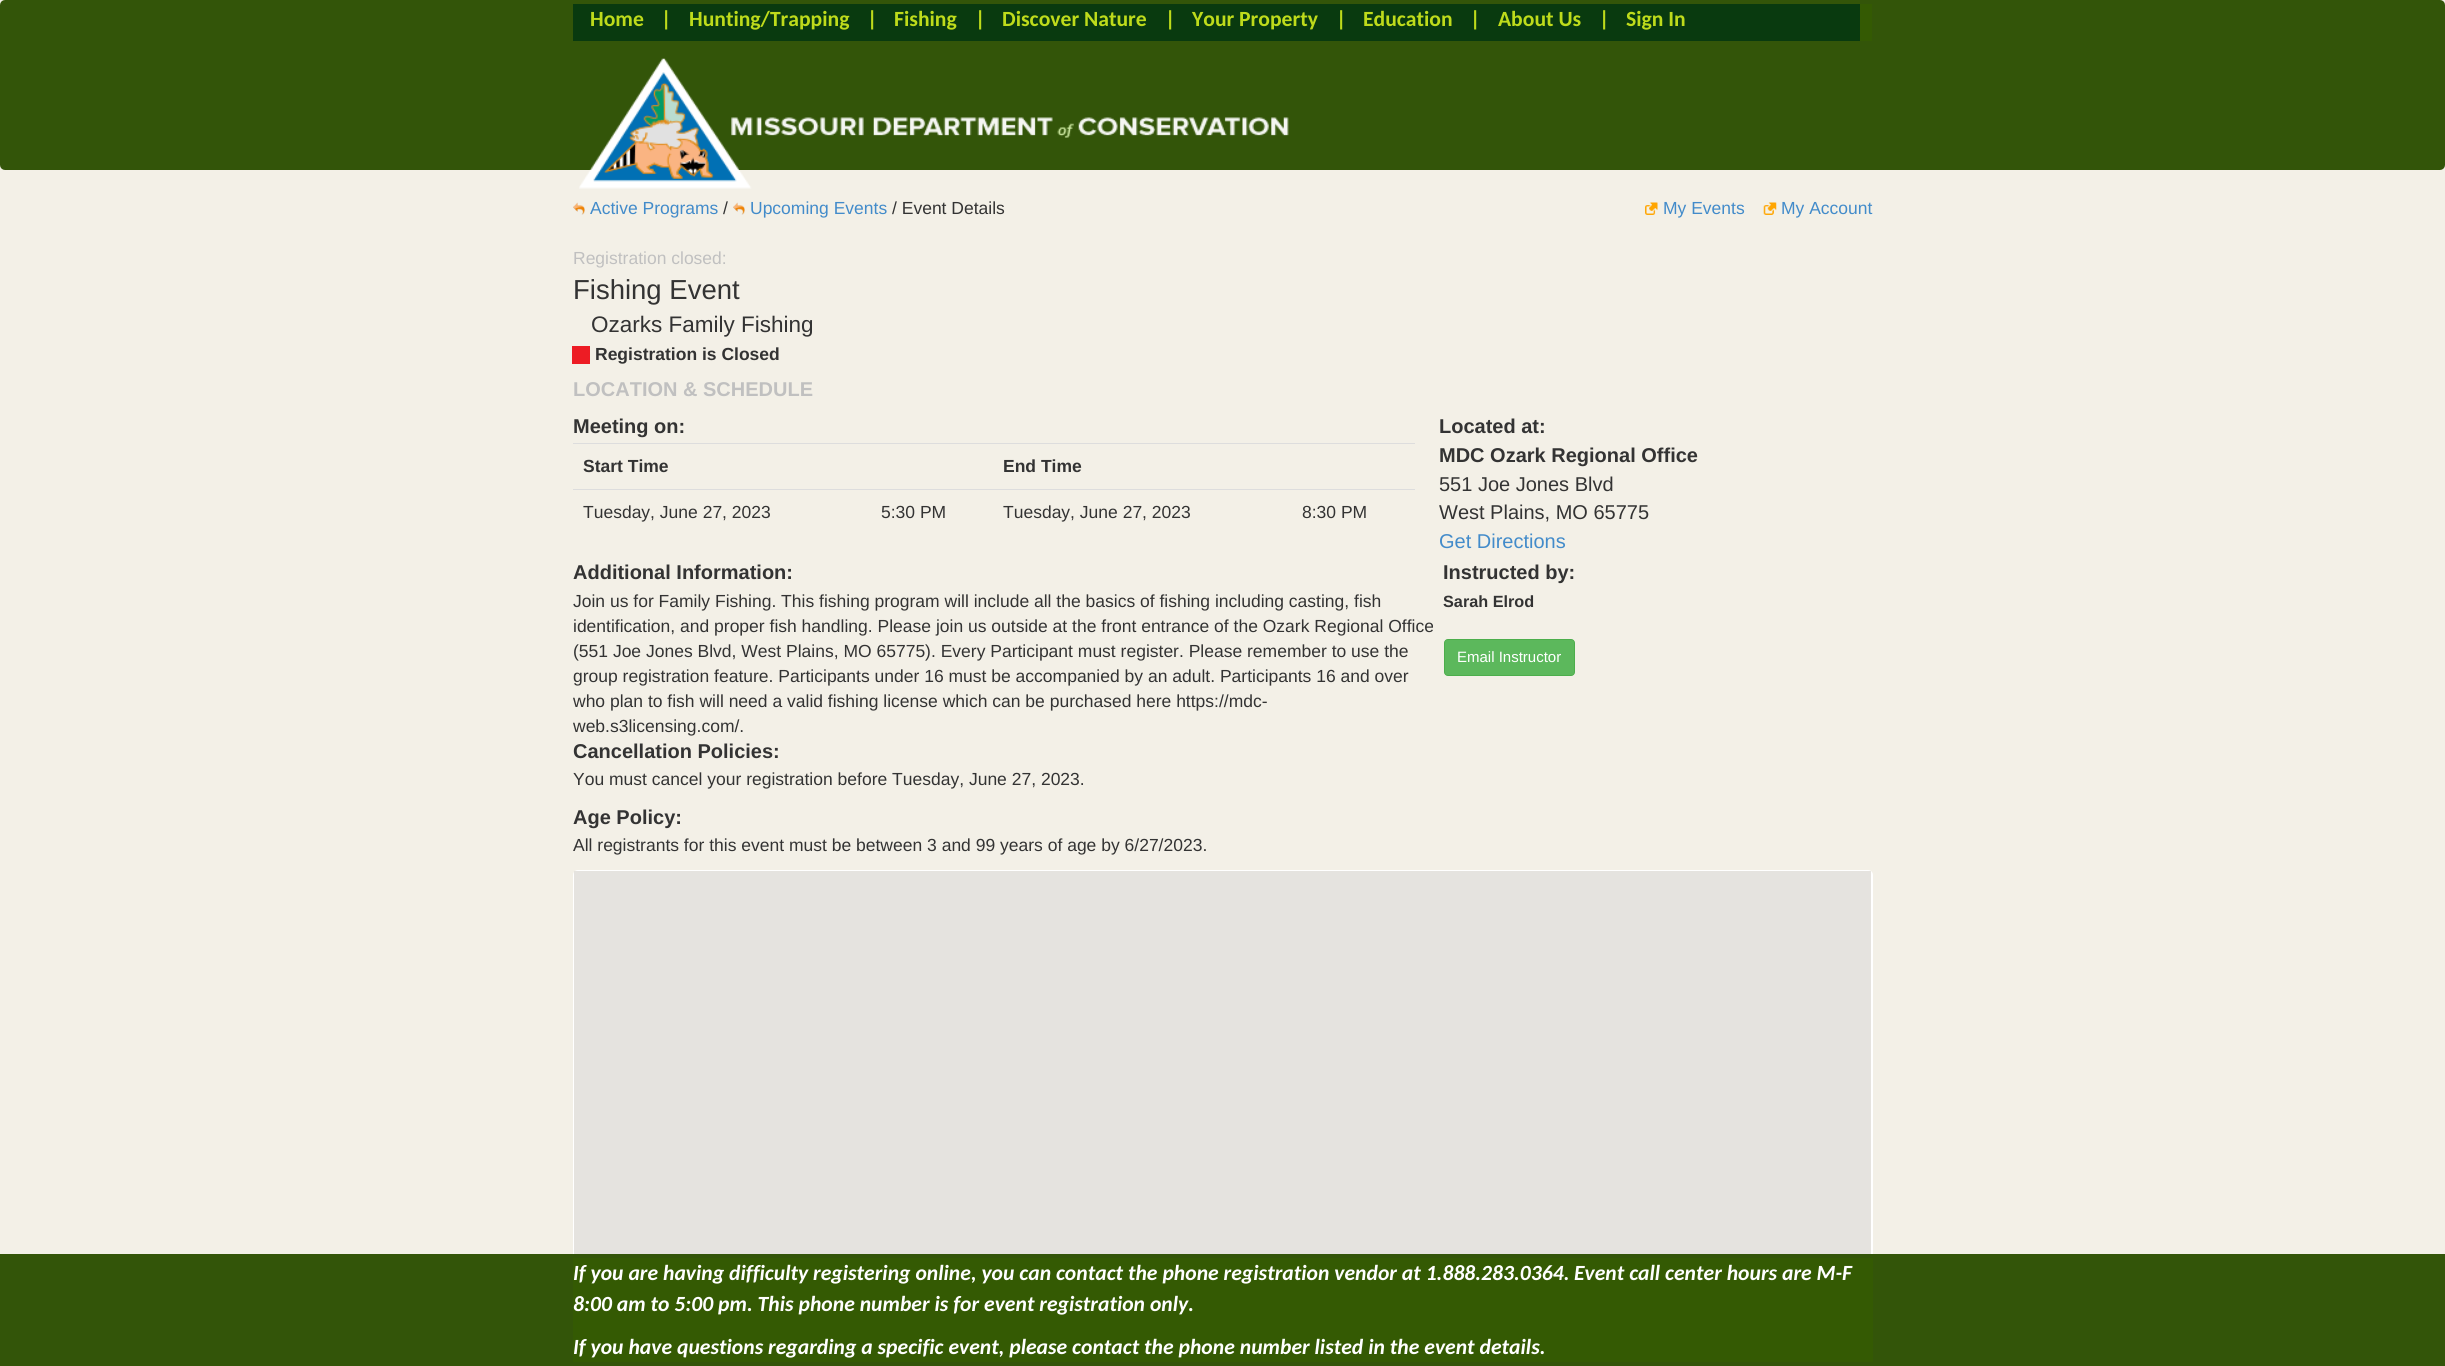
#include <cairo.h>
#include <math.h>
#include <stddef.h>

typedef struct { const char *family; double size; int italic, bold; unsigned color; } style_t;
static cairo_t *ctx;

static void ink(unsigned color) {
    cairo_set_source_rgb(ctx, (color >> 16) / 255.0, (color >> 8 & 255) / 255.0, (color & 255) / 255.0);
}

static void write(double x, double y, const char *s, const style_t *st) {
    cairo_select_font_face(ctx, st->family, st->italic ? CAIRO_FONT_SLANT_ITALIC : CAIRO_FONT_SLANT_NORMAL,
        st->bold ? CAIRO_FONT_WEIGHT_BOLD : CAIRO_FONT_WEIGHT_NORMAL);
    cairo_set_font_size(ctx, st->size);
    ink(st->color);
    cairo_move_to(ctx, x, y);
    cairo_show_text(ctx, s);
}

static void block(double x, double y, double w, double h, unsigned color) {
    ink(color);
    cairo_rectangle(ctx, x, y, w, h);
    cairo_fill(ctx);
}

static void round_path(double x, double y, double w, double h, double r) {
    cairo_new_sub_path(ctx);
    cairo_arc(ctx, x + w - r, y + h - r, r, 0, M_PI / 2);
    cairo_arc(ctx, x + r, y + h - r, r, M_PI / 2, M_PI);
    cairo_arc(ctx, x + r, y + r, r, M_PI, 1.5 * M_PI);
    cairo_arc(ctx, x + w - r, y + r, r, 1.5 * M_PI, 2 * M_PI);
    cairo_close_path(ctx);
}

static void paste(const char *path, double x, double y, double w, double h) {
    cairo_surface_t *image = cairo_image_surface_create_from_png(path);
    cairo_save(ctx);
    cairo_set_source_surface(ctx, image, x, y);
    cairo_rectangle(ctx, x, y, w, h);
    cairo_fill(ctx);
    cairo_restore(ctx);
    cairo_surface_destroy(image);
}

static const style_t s1 = {"Carlito", 21.65, 0, 1, 0xbedb1b};
static const style_t s2 = {"Liberation Sans", 17.5, 0, 0, 0x428bca};
static const style_t s3 = {"Liberation Sans", 17.5, 0, 0, 0x333333};
static const style_t s4 = {"Liberation Sans", 17.5, 0, 0, 0xc0c0c0};
static const style_t s5 = {"Liberation Sans", 27.5, 0, 0, 0x333333};
static const style_t s6 = {"Liberation Sans", 22.5, 0, 0, 0x333333};
static const style_t s7 = {"Liberation Sans", 17.5, 0, 1, 0x333333};
static const style_t s8 = {"Liberation Sans", 20, 0, 1, 0xc0c0c0};
static const style_t s9 = {"Liberation Sans", 20, 0, 1, 0x333333};
static const style_t s10 = {"Liberation Sans", 20, 0, 0, 0x333333};
static const style_t s11 = {"Liberation Sans", 20, 0, 0, 0x428bca};
static const style_t s12 = {"Liberation Sans", 16.25, 0, 1, 0x333333};
static const style_t s13 = {"Liberation Sans", 15, 0, 0, 0xffffff};
static const style_t s14 = {"Carlito", 21.65, 1, 1, 0xffffff};

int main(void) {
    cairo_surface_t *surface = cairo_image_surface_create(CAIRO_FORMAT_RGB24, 2445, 1366);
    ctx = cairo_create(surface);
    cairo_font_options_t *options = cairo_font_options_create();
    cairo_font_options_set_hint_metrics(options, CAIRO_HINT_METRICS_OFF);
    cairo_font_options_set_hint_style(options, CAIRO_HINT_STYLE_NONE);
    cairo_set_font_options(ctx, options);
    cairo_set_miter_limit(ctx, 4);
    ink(0xf3f0e7);
    cairo_paint(ctx);
    ink(0x335509);
    round_path(2, 2, 2441, 166, 3);
    cairo_fill_preserve(ctx);
    cairo_set_line_width(ctx, 4);
    cairo_stroke(ctx);
    block(1860, 4, 12, 37, 0x345a03);
    block(573, 4, 1287, 37, 0x093a0f);
    write(590, 26, "Home", &s1);
    write(661, 26, "|", &s1);
    write(689, 26, "Hunting/Trapping", &s1);
    write(867, 26, "|", &s1);
    write(894, 26, "Fishing", &s1);
    write(975, 26, "|", &s1);
    write(1002, 26, "Discover Nature", &s1);
    write(1165, 26, "|", &s1);
    write(1192, 26, "Your Property", &s1);
    write(1336, 26, "|", &s1);
    write(1363, 26, "Education", &s1);
    write(1470, 26, "|", &s1);
    write(1498, 26, "About Us", &s1);
    write(1599, 26, "|", &s1);
    write(1626, 26, "Sign In", &s1);
    paste("pic1.png", 579, 58, 710, 131);
    paste("pic2.png", 573, 202, 12, 13);
    write(590, 214, "Active Programs", &s2);
    write(723, 214, "/", &s3);
    paste("pic2.png", 733, 202, 12, 13);
    write(750, 214, "Upcoming Events", &s2);
    write(892, 214, "/ Event Details", &s3);
    paste("pic3.png", 1645, 202, 13, 13);
    write(1663, 214, "My Events", &s2);
    paste("pic4.png", 1763, 202, 14, 13);
    write(1781, 214, "My Account", &s2);
    write(573, 264, "Registration closed:", &s4);
    write(573, 299, "Fishing Event", &s5);
    write(591, 332, "Ozarks Family Fishing", &s6);
    write(595, 360, "Registration is Closed", &s7);
    block(572, 346, 18, 18, 0xed1c24);
    write(573, 396, "LOCATION & SCHEDULE", &s8);
    write(573, 433, "Meeting on:", &s9);
    write(1439, 433, "Located at:", &s9);
    block(573, 443, 842, 1, 0xdddddd);
    write(583, 472, "Start Time", &s7);
    write(1003, 472, "End Time", &s7);
    write(583, 518, "Tuesday, June 27, 2023", &s3);
    write(881, 518, "5:30 PM", &s3);
    write(1003, 518, "Tuesday, June 27, 2023", &s3);
    block(573, 489, 842, 1, 0xdddddd);
    write(1302, 518, "8:30 PM", &s3);
    write(1439, 462, "MDC Ozark Regional Office", &s9);
    write(1439, 491, "551 Joe Jones Blvd", &s10);
    write(1439, 519, "West Plains, MO 65775", &s10);
    write(1439, 548, "Get Directions", &s11);
    write(573, 579, "Additional Information:", &s9);
    write(1443, 579, "Instructed by:", &s9);
    write(573, 607, "Join us for Family Fishing. This fishing program will include all the basics of fishing including casting, fish", &s3);
    write(573, 632, "identification, and proper fish handling. Please join us outside at the front entrance of the Ozark Regional Office", &s3);
    write(573, 657, "(551 Joe Jones Blvd, West Plains, MO 65775). Every Participant must register. Please remember to use the", &s3);
    write(573, 682, "group registration feature. Participants under 16 must be accompanied by an adult. Participants 16 and over", &s3);
    write(573, 707, "who plan to fish will need a valid fishing license which can be purchased here https://mdc-", &s3);
    write(573, 732, "web.s3licensing.com/.", &s3);
    write(1443, 607, "Sarah Elrod", &s12);
    ink(0x5cb85c);
    round_path(1444.5, 639.5, 130, 36, 3.5);
    cairo_fill_preserve(ctx);
    ink(0x4cae4c);
    cairo_set_line_width(ctx, 1);
    cairo_stroke(ctx);
    write(1457, 662, "Email Instructor", &s13);
    write(573, 758, "Cancellation Policies:", &s9);
    write(573, 785, "You must cancel your registration before Tuesday, June 27, 2023.", &s3);
    write(573, 824, "Age Policy:", &s9);
    write(573, 851, "All registrants for this event must be between 3 and 99 years of age by 6/27/2023.", &s3);
    ink(0xffffff);
    round_path(573, 870, 1300, 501, 5);
    cairo_fill(ctx);
    block(574, 871, 1297, 383, 0xe5e3df);
    block(0, 1254, 2445, 112, 0x335509);
    block(573, 1258, 1300, 104, 0x345a03);
    write(573, 1280, "If you are having difficulty registering online, you can contact the phone registration vendor at 1.888.283.0364.", &s14);
    write(1574, 1280, "Event call center hours are M-F", &s14);
    write(573, 1311, "8:00 am to 5:00 pm. This phone number is for event registration only.", &s14);
    write(573, 1354, "If you have questions regarding a specific event, please contact the phone number listed in the event details.", &s14);
    cairo_surface_write_to_png(surface, "screenshot.png");
    cairo_font_options_destroy(options);
    cairo_destroy(ctx);
    cairo_surface_destroy(surface);
    return 0;
}
